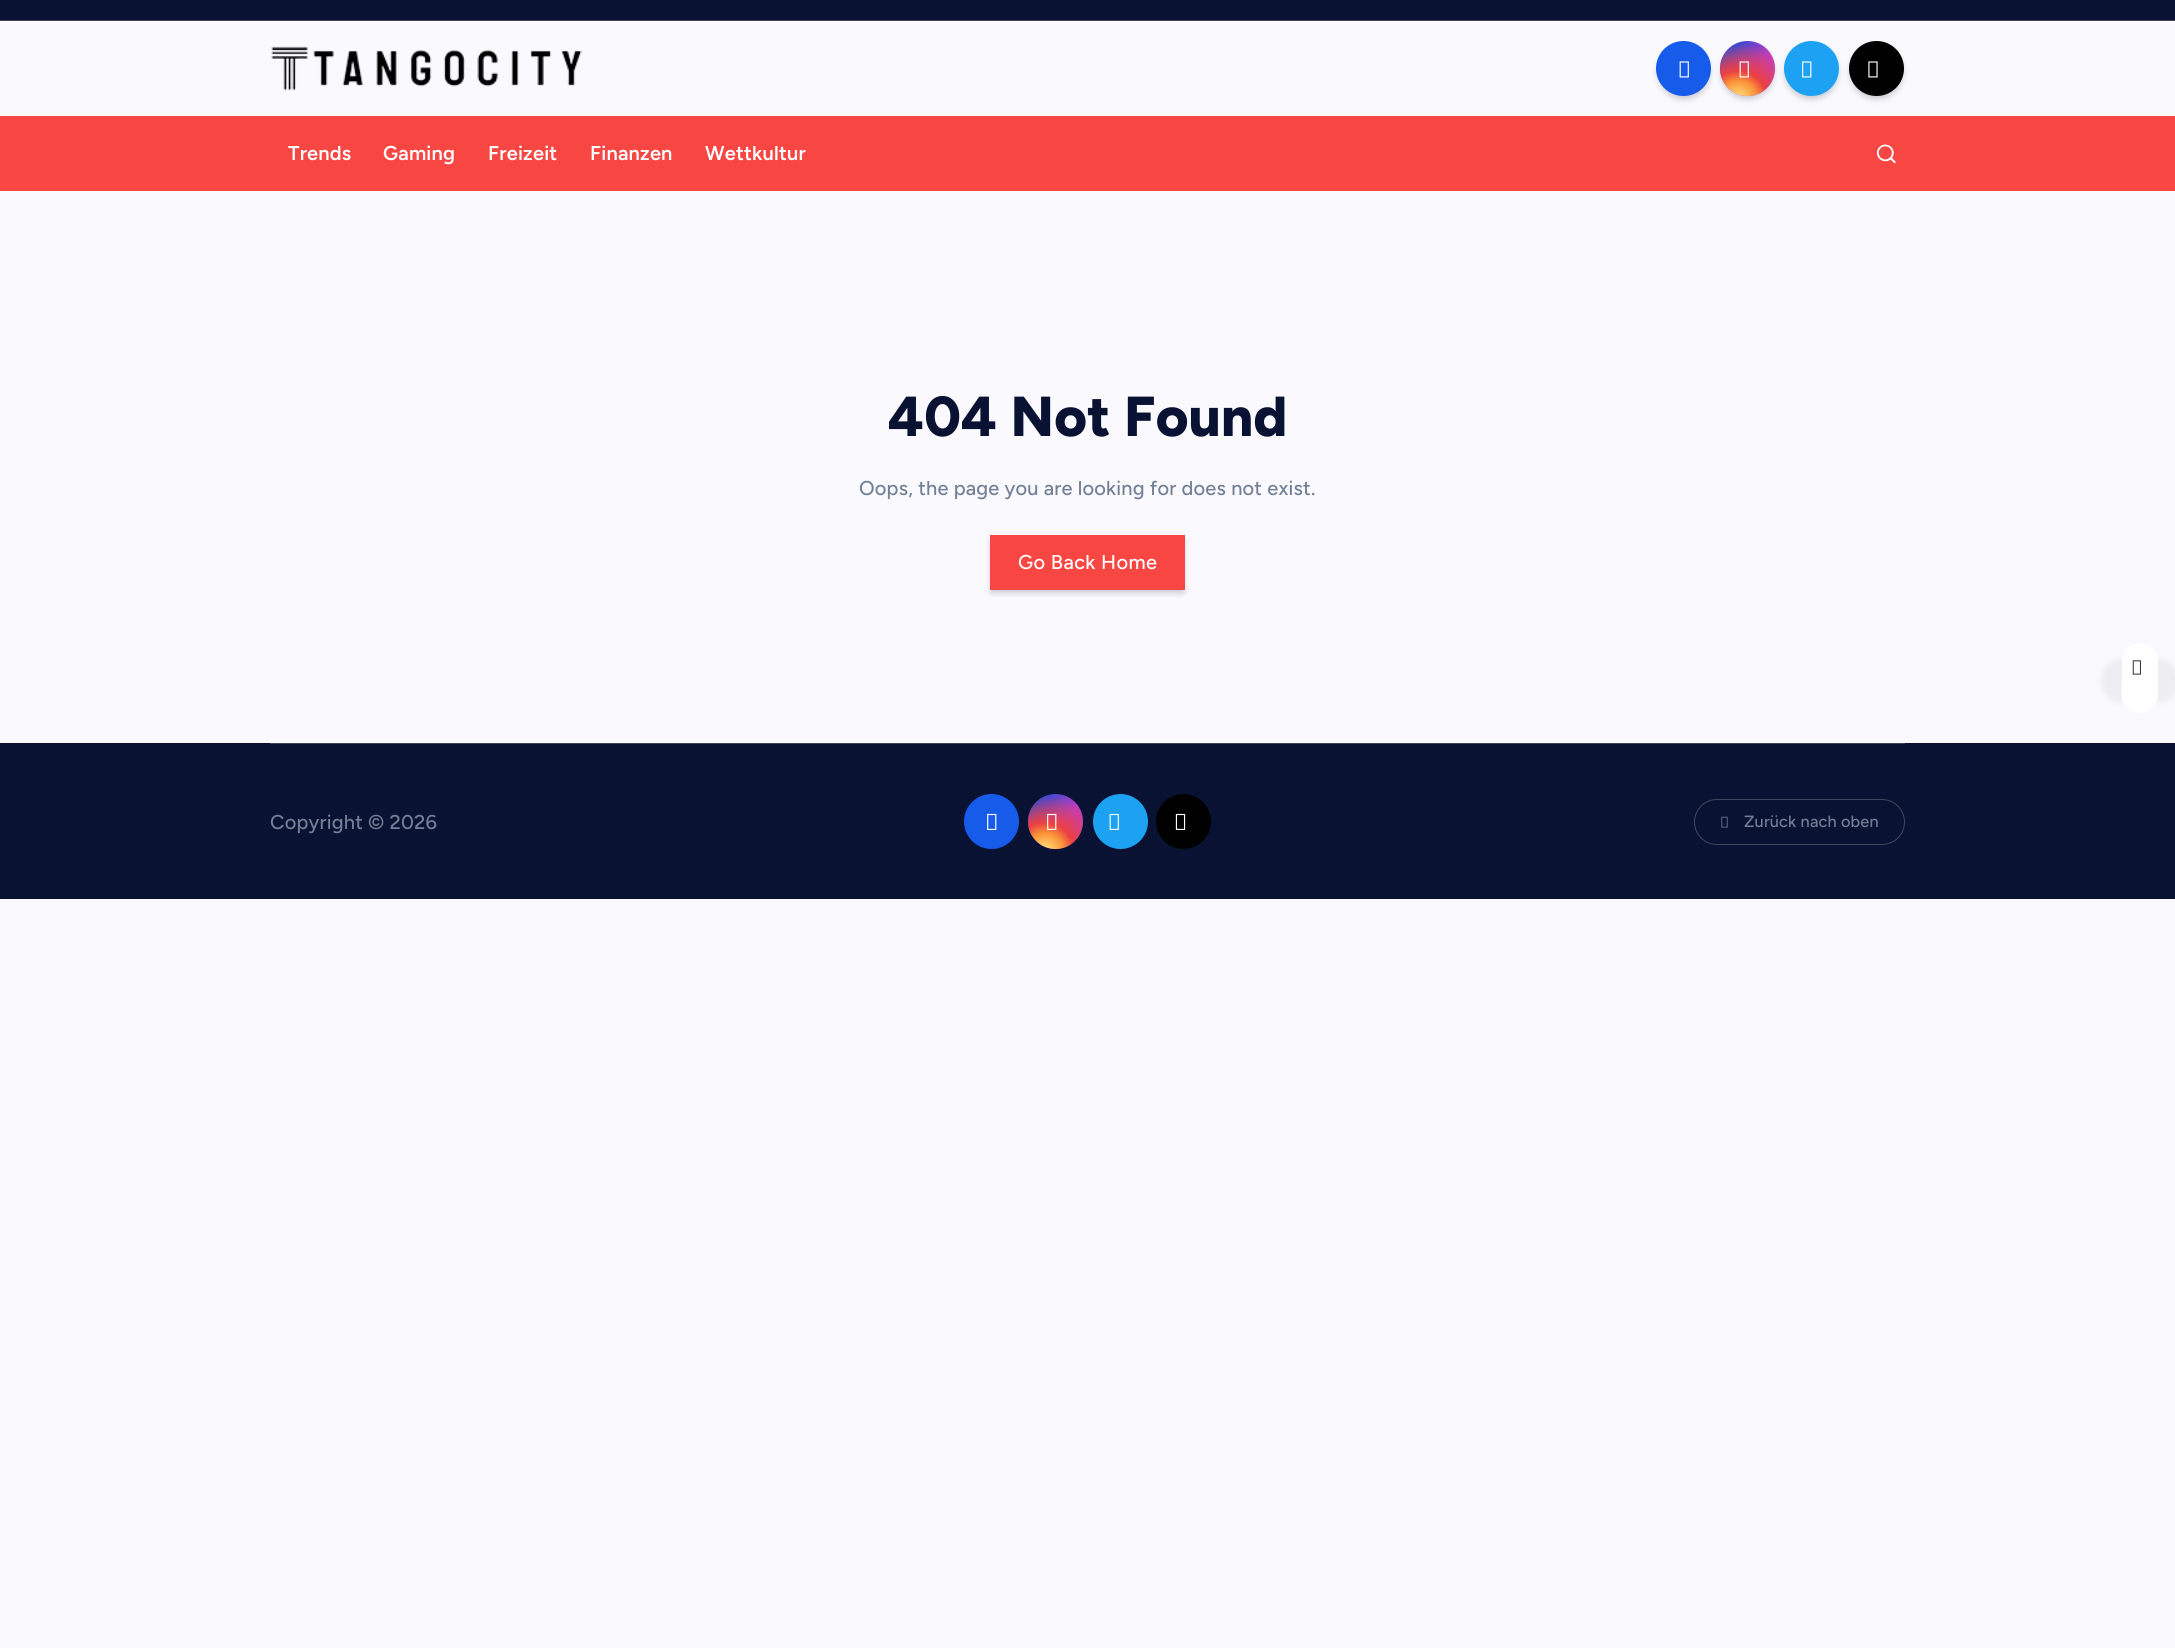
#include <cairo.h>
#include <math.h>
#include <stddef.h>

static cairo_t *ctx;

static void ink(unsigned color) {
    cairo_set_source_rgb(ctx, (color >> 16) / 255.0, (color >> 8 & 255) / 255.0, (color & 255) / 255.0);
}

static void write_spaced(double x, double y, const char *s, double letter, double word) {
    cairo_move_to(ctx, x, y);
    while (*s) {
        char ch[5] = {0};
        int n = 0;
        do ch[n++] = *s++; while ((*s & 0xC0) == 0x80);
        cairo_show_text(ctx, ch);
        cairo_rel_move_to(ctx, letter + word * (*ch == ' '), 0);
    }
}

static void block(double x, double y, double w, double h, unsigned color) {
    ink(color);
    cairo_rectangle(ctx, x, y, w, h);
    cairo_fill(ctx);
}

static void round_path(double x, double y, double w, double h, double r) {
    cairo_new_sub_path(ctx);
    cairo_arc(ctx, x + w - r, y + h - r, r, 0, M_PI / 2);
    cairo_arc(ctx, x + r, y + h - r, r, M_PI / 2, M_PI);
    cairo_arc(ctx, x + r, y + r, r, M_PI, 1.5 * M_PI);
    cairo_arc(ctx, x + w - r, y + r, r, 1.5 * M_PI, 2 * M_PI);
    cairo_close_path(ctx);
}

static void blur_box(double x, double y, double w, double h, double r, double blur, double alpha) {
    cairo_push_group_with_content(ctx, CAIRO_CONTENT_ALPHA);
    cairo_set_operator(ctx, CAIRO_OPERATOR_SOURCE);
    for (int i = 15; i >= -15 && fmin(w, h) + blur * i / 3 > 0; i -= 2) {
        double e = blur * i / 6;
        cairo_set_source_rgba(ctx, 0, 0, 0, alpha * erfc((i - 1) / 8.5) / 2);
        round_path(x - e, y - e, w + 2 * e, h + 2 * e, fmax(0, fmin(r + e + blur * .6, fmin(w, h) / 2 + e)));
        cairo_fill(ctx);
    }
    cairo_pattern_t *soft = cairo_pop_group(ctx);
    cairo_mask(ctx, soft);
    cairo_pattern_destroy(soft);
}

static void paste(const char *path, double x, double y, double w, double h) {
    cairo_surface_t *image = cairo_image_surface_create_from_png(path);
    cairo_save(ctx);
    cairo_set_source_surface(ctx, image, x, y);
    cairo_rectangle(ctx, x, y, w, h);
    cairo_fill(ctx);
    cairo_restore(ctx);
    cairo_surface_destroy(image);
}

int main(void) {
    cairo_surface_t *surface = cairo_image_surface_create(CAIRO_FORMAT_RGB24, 2175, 1648);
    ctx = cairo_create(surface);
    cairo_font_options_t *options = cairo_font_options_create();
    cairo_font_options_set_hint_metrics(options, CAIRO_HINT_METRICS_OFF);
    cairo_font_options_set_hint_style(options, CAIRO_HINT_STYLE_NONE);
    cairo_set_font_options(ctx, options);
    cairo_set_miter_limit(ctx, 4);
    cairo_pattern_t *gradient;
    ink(0xf9f9fe);
    cairo_paint(ctx);
    block(0, 0, 2175, 20, 0x0a1233);
    block(0, 20, 2175, 1, 0x40455c);
    paste("pic1.png", 271, 46, 312, 45);
    ink(0x070a19);
    blur_box(1658, 46, 52, 53, 26, 3, 0.2);
    ink(0x175beb);
    cairo_arc(ctx, 1683.5, 68.5, 27.5, 0, 2 * M_PI);
    cairo_fill(ctx);
    paste("pic2.png", 1679, 61, 10, 17);
    ink(0x070a19);
    blur_box(1721, 46, 53, 53, 26.5, 3, 0.2);
    gradient = cairo_pattern_create_linear(1720, 41, 1775, 96);
    cairo_pattern_add_color_stop_rgba(gradient, 0.12, 0.137, 0.294, 0.843, 1);
    cairo_pattern_add_color_stop_rgba(gradient, 0.58, 0.765, 0.235, 0.745, 1);
    cairo_set_source(ctx, gradient);
    cairo_pattern_destroy(gradient);
    cairo_arc(ctx, 1747.5, 68.5, 27.5, 0, 2 * M_PI);
    cairo_fill(ctx);
    gradient = cairo_pattern_create_radial(1738, 100, 0, 1738, 100, 69);
    cairo_pattern_add_color_stop_rgba(gradient, 0, 1, 0.882, 0.49, 1);
    cairo_pattern_add_color_stop_rgba(gradient, 0.1, 1, 0.804, 0.412, 1);
    cairo_pattern_add_color_stop_rgba(gradient, 0.28, 0.98, 0.569, 0.216, 1);
    cairo_pattern_add_color_stop_rgba(gradient, 0.42, 0.922, 0.255, 0.255, 1);
    cairo_pattern_add_color_stop_rgba(gradient, 0.82, 0.922, 0.255, 0.255, 0);
    cairo_set_source(ctx, gradient);
    cairo_pattern_destroy(gradient);
    cairo_arc(ctx, 1747.5, 68.5, 27.5, 0, 2 * M_PI);
    cairo_fill(ctx);
    paste("pic3.png", 1739, 61, 10, 17);
    ink(0x070a19);
    blur_box(1785, 46, 53, 53, 26.5, 3, 0.2);
    ink(0x1da1f2);
    cairo_arc(ctx, 1811.5, 68.5, 27.5, 0, 2 * M_PI);
    cairo_fill(ctx);
    paste("pic4.png", 1802, 61, 10, 17);
    ink(0x070a19);
    blur_box(1850, 46, 53, 53, 26.5, 3, 0.2);
    ink(0x010101);
    cairo_arc(ctx, 1876.5, 68.5, 27.5, 0, 2 * M_PI);
    cairo_fill(ctx);
    paste("pic5.png", 1868, 61, 10, 17);
    block(0, 116, 2175, 75, 0xf84643);
    cairo_select_font_face(ctx, "Figtree SemiBold", CAIRO_FONT_SLANT_NORMAL, CAIRO_FONT_WEIGHT_NORMAL);
    cairo_set_font_size(ctx, 20);
    ink(0xffffff);
    write_spaced(288, 160, "Trends", 0.2, 0);
    write_spaced(383, 160, "Gaming", 0.2, 0);
    write_spaced(488, 160, "Freizeit", 0.2, 0);
    write_spaced(590, 160, "Finanzen", 0.2, 0);
    write_spaced(705, 160, "Wettkultur", 0.2, 0);
    paste("pic6.png", 1876, 144, 20, 20);
    cairo_select_font_face(ctx, "Figtree ExtraBold", CAIRO_FONT_SLANT_NORMAL, CAIRO_FONT_WEIGHT_NORMAL);
    cairo_set_font_size(ctx, 56.25);
    ink(0x0a1233);
    write_spaced(888, 436, "404 Not Found", 0.2, 0);
    cairo_select_font_face(ctx, "Figtree Medium", CAIRO_FONT_SLANT_NORMAL, CAIRO_FONT_WEIGHT_NORMAL);
    cairo_set_font_size(ctx, 20);
    ink(0x718096);
    write_spaced(859, 495, "Oops, the page you are looking for does not exist.", 0.2, 0);
    ink(0x070a19);
    blur_box(991, 540, 193, 53, 0, 3, 0.2);
    block(990, 535, 195, 55, 0xf84643);
    ink(0xffffff);
    write_spaced(1018, 569, "Go Back Home", 0.4, 0);
    ink(0x000000);
    blur_box(2101, 659, 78, 44, 22, 3, 0.05);
    ink(0xffffff);
    cairo_new_path(ctx);
    cairo_move_to(ctx, 2158, 661);
    cairo_line_to(ctx, 2158, 695);
    cairo_curve_to(ctx, 2157, 714, 2131, 720, 2123, 702);
    cairo_curve_to(ctx, 2120, 695, 2122, 685, 2122, 678);
    cairo_line_to(ctx, 2122, 661);
    cairo_curve_to(ctx, 2123, 637, 2158, 638, 2158, 661);
    cairo_close_path(ctx);
    cairo_fill(ctx);
    paste("pic7.png", 2132, 660, 9, 15);
    block(0, 743, 2175, 156, 0x0a1233);
    block(270, 743, 1635, 1, 0x40455c);
    ink(0x718096);
    write_spaced(270, 829, "Copyright © 2026", 0.2, 0);
    ink(0x175beb);
    cairo_new_path(ctx);
    cairo_arc(ctx, 991.5, 821.5, 27.5, 0, 2 * M_PI);
    cairo_fill(ctx);
    paste("pic8.png", 987, 813, 10, 17);
    gradient = cairo_pattern_create_linear(1028, 794, 1083, 849);
    cairo_pattern_add_color_stop_rgba(gradient, 0.12, 0.137, 0.294, 0.843, 1);
    cairo_pattern_add_color_stop_rgba(gradient, 0.58, 0.765, 0.235, 0.745, 1);
    cairo_set_source(ctx, gradient);
    cairo_pattern_destroy(gradient);
    cairo_arc(ctx, 1055.5, 821.5, 27.5, 0, 2 * M_PI);
    cairo_fill(ctx);
    gradient = cairo_pattern_create_radial(1045, 852, 0, 1045, 852, 69);
    cairo_pattern_add_color_stop_rgba(gradient, 0, 1, 0.882, 0.49, 1);
    cairo_pattern_add_color_stop_rgba(gradient, 0.1, 1, 0.804, 0.412, 1);
    cairo_pattern_add_color_stop_rgba(gradient, 0.28, 0.98, 0.569, 0.216, 1);
    cairo_pattern_add_color_stop_rgba(gradient, 0.42, 0.922, 0.255, 0.255, 1);
    cairo_pattern_add_color_stop_rgba(gradient, 0.82, 0.922, 0.255, 0.255, 0);
    cairo_set_source(ctx, gradient);
    cairo_pattern_destroy(gradient);
    cairo_arc(ctx, 1055.5, 821.5, 27.5, 0, 2 * M_PI);
    cairo_fill(ctx);
    paste("pic9.png", 1047, 813, 10, 17);
    ink(0x1da1f2);
    cairo_arc(ctx, 1120.5, 821.5, 27.5, 0, 2 * M_PI);
    cairo_fill(ctx);
    paste("pic10.png", 1109, 813, 10, 17);
    ink(0x010101);
    cairo_arc(ctx, 1183.5, 821.5, 27.5, 0, 2 * M_PI);
    cairo_fill(ctx);
    paste("pic11.png", 1175, 813, 11, 17);
    round_path(1694.5, 799.5, 210, 45, 22.5);
    ink(0x40455c);
    cairo_set_line_width(ctx, 1);
    cairo_stroke(ctx);
    paste("pic12.png", 1721, 816, 7, 12);
    cairo_set_font_size(ctx, 16.25);
    ink(0x718096);
    write_spaced(1744, 827, "Zurück nach oben", 0.2, 0);
    cairo_surface_write_to_png(surface, "screenshot.png");
    cairo_font_options_destroy(options);
    cairo_destroy(ctx);
    cairo_surface_destroy(surface);
    return 0;
}
